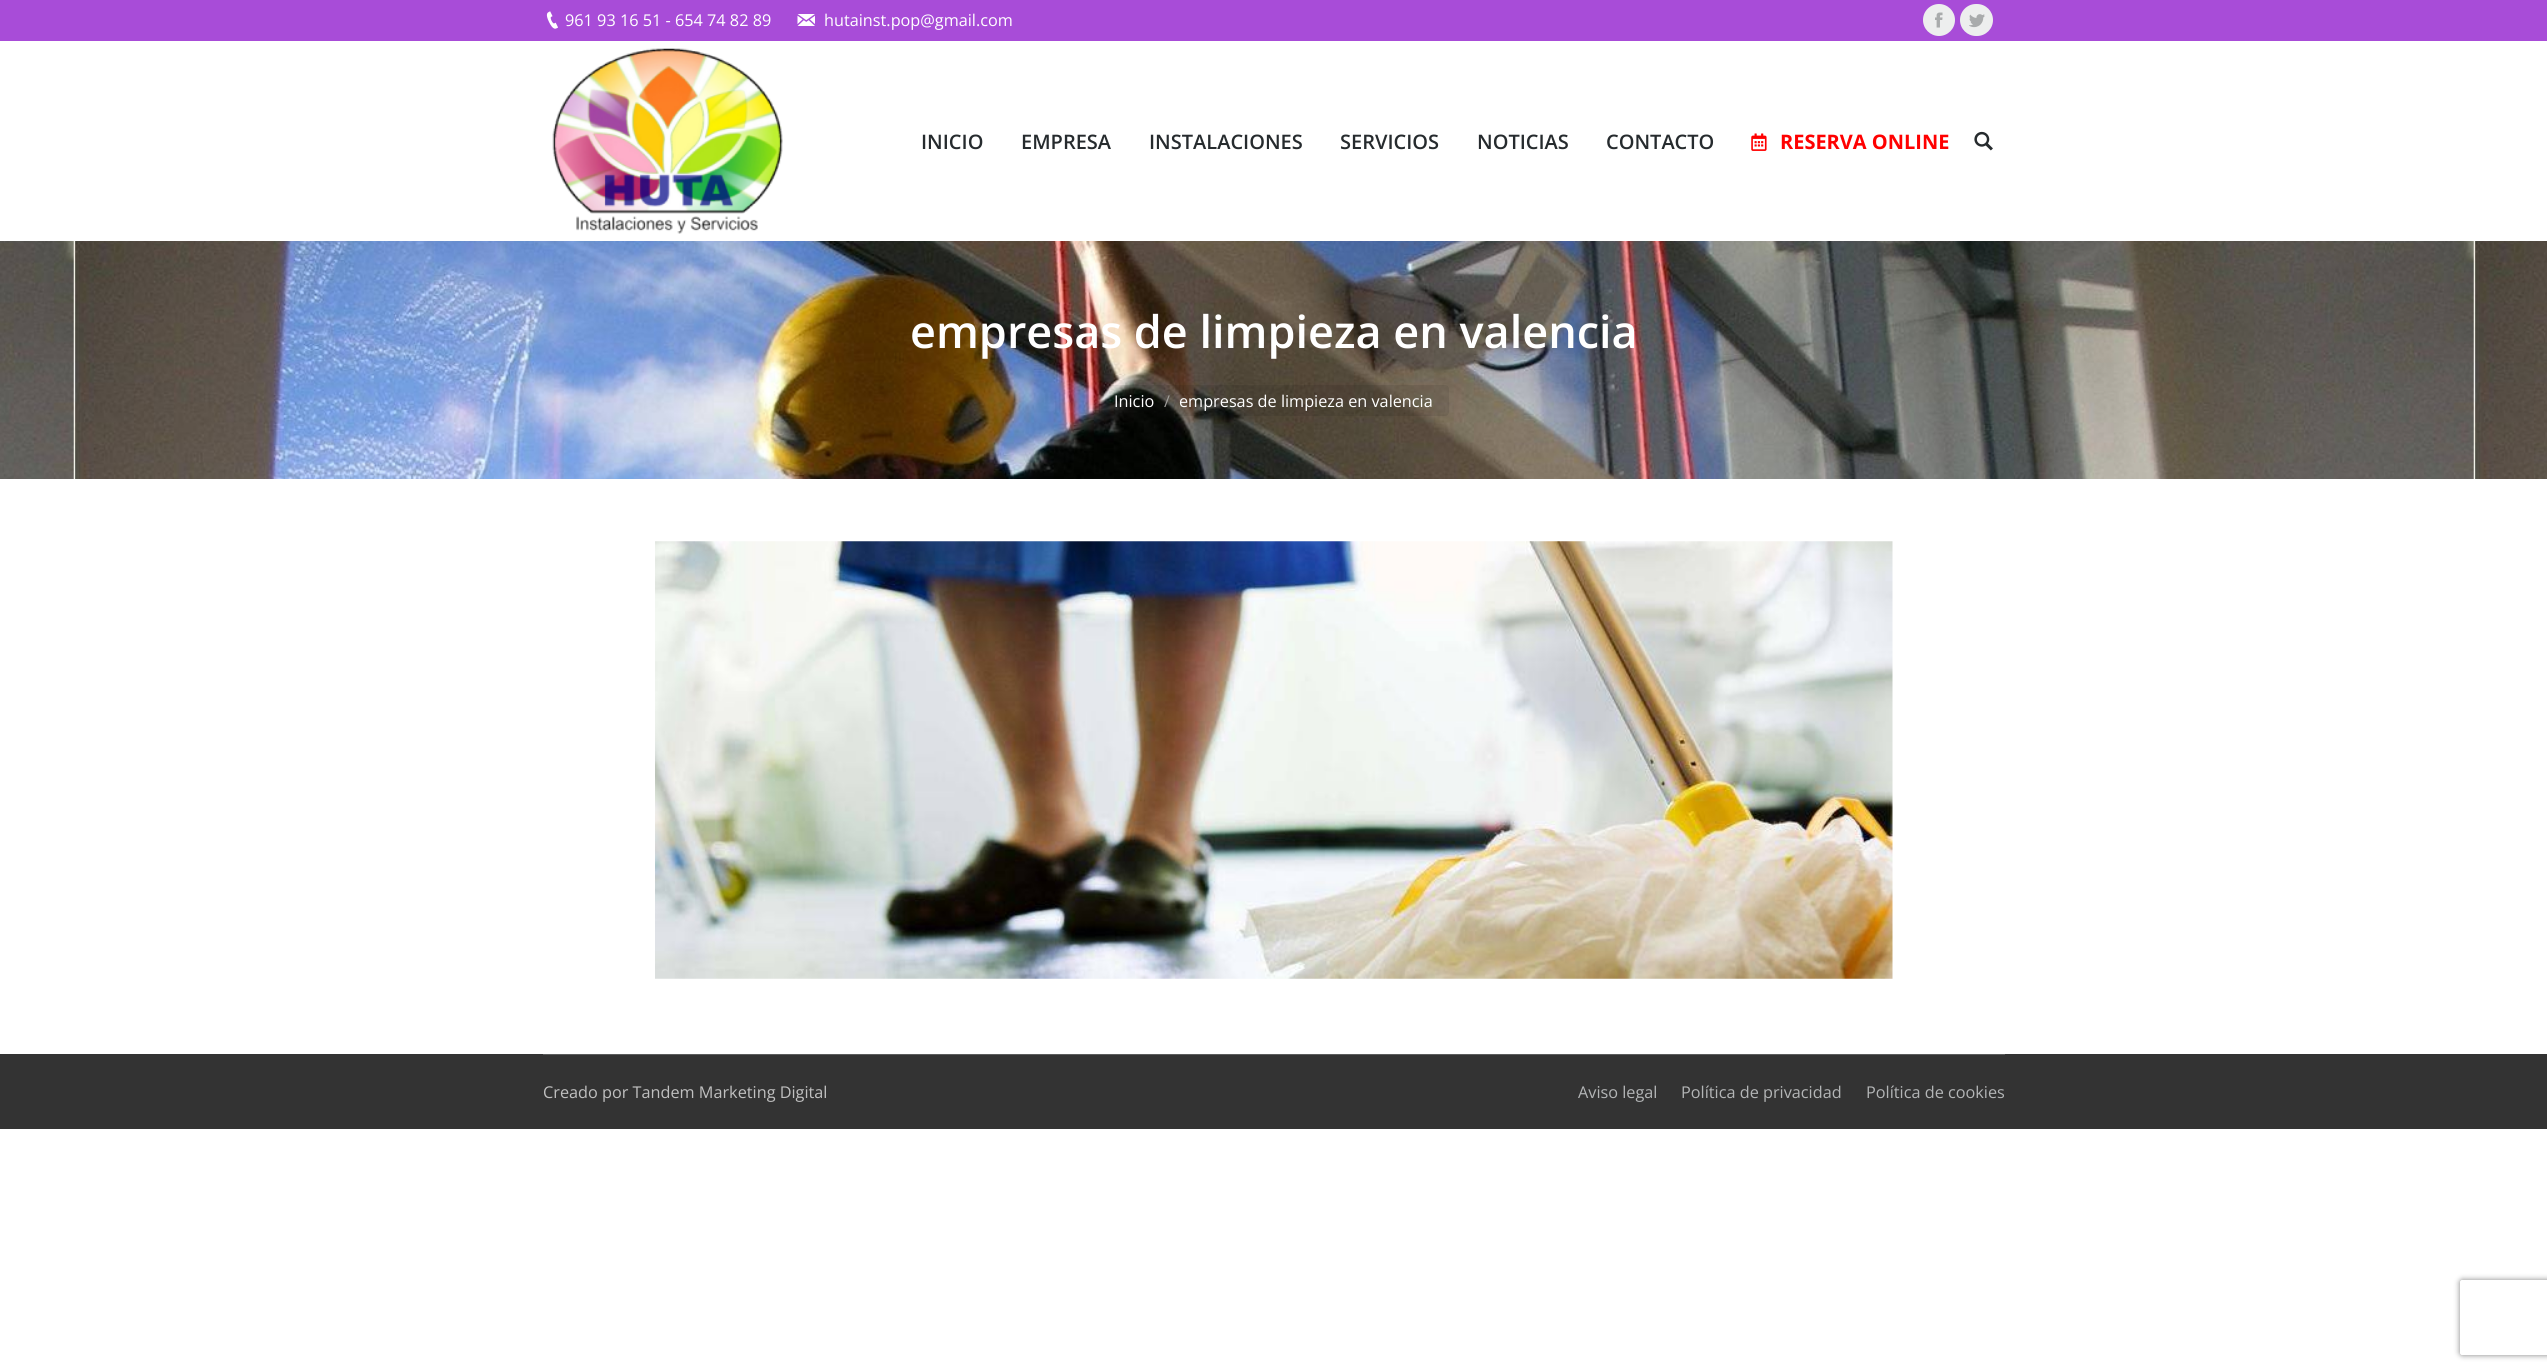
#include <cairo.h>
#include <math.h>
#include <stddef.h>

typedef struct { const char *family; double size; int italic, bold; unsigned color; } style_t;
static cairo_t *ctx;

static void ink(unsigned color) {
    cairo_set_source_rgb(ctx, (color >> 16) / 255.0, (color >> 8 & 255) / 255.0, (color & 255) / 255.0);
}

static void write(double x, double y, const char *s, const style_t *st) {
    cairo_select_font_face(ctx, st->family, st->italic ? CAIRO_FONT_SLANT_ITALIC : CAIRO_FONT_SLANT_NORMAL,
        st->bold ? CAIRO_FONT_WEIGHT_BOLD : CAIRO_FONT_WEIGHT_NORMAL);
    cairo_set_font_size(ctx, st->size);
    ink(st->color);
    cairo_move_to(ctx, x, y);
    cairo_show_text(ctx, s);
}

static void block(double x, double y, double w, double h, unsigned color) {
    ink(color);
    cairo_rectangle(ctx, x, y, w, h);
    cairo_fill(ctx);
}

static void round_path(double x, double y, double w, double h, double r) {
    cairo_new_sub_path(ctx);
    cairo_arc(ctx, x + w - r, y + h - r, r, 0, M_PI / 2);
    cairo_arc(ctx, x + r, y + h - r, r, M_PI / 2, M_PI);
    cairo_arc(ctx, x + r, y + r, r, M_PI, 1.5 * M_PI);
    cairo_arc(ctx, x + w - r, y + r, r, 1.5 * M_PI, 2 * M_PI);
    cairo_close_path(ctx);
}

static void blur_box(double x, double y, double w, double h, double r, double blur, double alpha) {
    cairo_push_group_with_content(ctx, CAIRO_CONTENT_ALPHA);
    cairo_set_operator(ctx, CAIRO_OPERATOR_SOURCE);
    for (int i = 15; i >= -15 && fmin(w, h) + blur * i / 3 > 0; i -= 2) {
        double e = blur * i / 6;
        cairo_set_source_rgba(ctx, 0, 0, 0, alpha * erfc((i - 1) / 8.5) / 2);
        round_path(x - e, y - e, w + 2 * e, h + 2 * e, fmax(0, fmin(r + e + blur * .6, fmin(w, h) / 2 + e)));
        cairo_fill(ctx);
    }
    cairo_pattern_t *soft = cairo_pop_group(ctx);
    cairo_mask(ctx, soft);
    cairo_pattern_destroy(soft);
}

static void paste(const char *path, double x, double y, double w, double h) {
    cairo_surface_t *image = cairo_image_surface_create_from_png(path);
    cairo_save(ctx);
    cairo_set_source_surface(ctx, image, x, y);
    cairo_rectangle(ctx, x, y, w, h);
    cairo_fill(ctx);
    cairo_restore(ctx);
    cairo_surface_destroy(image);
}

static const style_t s1 = {"Open Sans", 16.25, 0, 0, 0xffffff};
static const style_t s2 = {"Open Sans SemiBold", 20, 0, 0, 0x262b2e};
static const style_t s3 = {"Open Sans", 20, 0, 1, 0xff0000};
static const style_t s4 = {"Open Sans SemiBold", 45, 0, 0, 0xffffff};
static const style_t s5 = {"Open Sans", 16.25, 0, 0, 0xa09e9b};
static const style_t s6 = {"Open Sans", 16.25, 0, 0, 0xc0c0c0};
static const style_t s7 = {"Open Sans", 16.25, 0, 0, 0xb3b5b6};

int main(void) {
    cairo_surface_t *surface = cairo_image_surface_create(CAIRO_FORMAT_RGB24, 2547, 1372);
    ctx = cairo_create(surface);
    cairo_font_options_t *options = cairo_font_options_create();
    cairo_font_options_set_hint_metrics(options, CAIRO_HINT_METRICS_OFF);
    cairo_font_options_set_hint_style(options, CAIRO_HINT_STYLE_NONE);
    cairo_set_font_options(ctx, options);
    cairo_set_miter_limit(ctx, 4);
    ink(0xffffff);
    cairo_paint(ctx);
    block(0, 0, 2547, 41, 0xa84cd8);
    paste("pic1.png", 546, 11, 12, 18);
    write(565, 26, "961 93 16 51 - 654 74 82 89", &s1);
    paste("pic2.png", 797, 14, 18, 12);
    write(824, 26, "hutainst.pop@gmail.com", &s1);
    ink(0xedeeee);
    cairo_new_path(ctx);
    cairo_arc(ctx, 1939, 20, 16, 0, 2 * M_PI);
    cairo_fill(ctx);
    paste("pic3.png", 1935, 12, 8, 16);
    round_path(1960, 4, 33, 32, 16);
    cairo_fill(ctx);
    paste("pic4.png", 1969, 14, 16, 14);
    paste("pic5.png", 552, 48, 231, 186);
    write(921, 149, "INICIO", &s2);
    write(1021, 149, "EMPRESA", &s2);
    write(1149, 149, "INSTALACIONES", &s2);
    write(1340, 149, "SERVICIOS", &s2);
    write(1477, 149, "NOTICIAS", &s2);
    write(1606, 149, "CONTACTO", &s2);
    paste("pic6.png", 1751, 133, 16, 18);
    write(1780, 149, "RESERVA ONLINE", &s3);
    paste("pic7.png", 1974, 131, 19, 20);
    paste("pic8.png", 0, 241, 2547, 238);
    write(910, 348, "empresas de limpieza en valencia", &s4);
    cairo_set_source_rgba(ctx, 0.059, 0.071, 0.075, 0.1);
    round_path(1099, 385, 350, 31, 4);
    cairo_fill(ctx);
    write(1114, 407, "Inicio", &s1);
    write(1164, 407, "/", &s5);
    write(1179, 407, "empresas de limpieza en valencia", &s1);
    paste("pic9.png", 655, 541, 1238, 438);
    block(0, 1054, 2547, 75, 0x333333);
    block(543, 1054, 1462, 1, 0x5c5d5d);
    write(543, 1098, "Creado por Tandem Marketing Digital", &s6);
    write(1578, 1098, "Aviso legal", &s7);
    write(1681, 1098, "Política de privacidad", &s7);
    write(1866, 1098, "Política de cookies", &s7);
    cairo_save(ctx);
    cairo_set_fill_rule(ctx, CAIRO_FILL_RULE_EVEN_ODD);
    cairo_new_path(ctx);
    cairo_move_to(ctx, 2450, 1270);
    cairo_line_to(ctx, 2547, 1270);
    cairo_line_to(ctx, 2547, 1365);
    cairo_line_to(ctx, 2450, 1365);
    cairo_close_path(ctx);
    cairo_move_to(ctx, 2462.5, 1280);
    cairo_line_to(ctx, 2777.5, 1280);
    cairo_curve_to(ctx, 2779, 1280, 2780, 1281, 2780, 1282.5);
    cairo_line_to(ctx, 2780, 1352.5);
    cairo_curve_to(ctx, 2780, 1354, 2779, 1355, 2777.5, 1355);
    cairo_line_to(ctx, 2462.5, 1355);
    cairo_curve_to(ctx, 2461, 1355, 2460, 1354, 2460, 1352.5);
    cairo_line_to(ctx, 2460, 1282.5);
    cairo_curve_to(ctx, 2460, 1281, 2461, 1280, 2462.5, 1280);
    cairo_close_path(ctx);
    cairo_clip(ctx);
    ink(0x808080);
    blur_box(2460, 1280, 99, 75, 2.5, 3, 1);
    cairo_restore(ctx);
    cairo_surface_write_to_png(surface, "screenshot.png");
    cairo_font_options_destroy(options);
    cairo_destroy(ctx);
    cairo_surface_destroy(surface);
    return 0;
}
